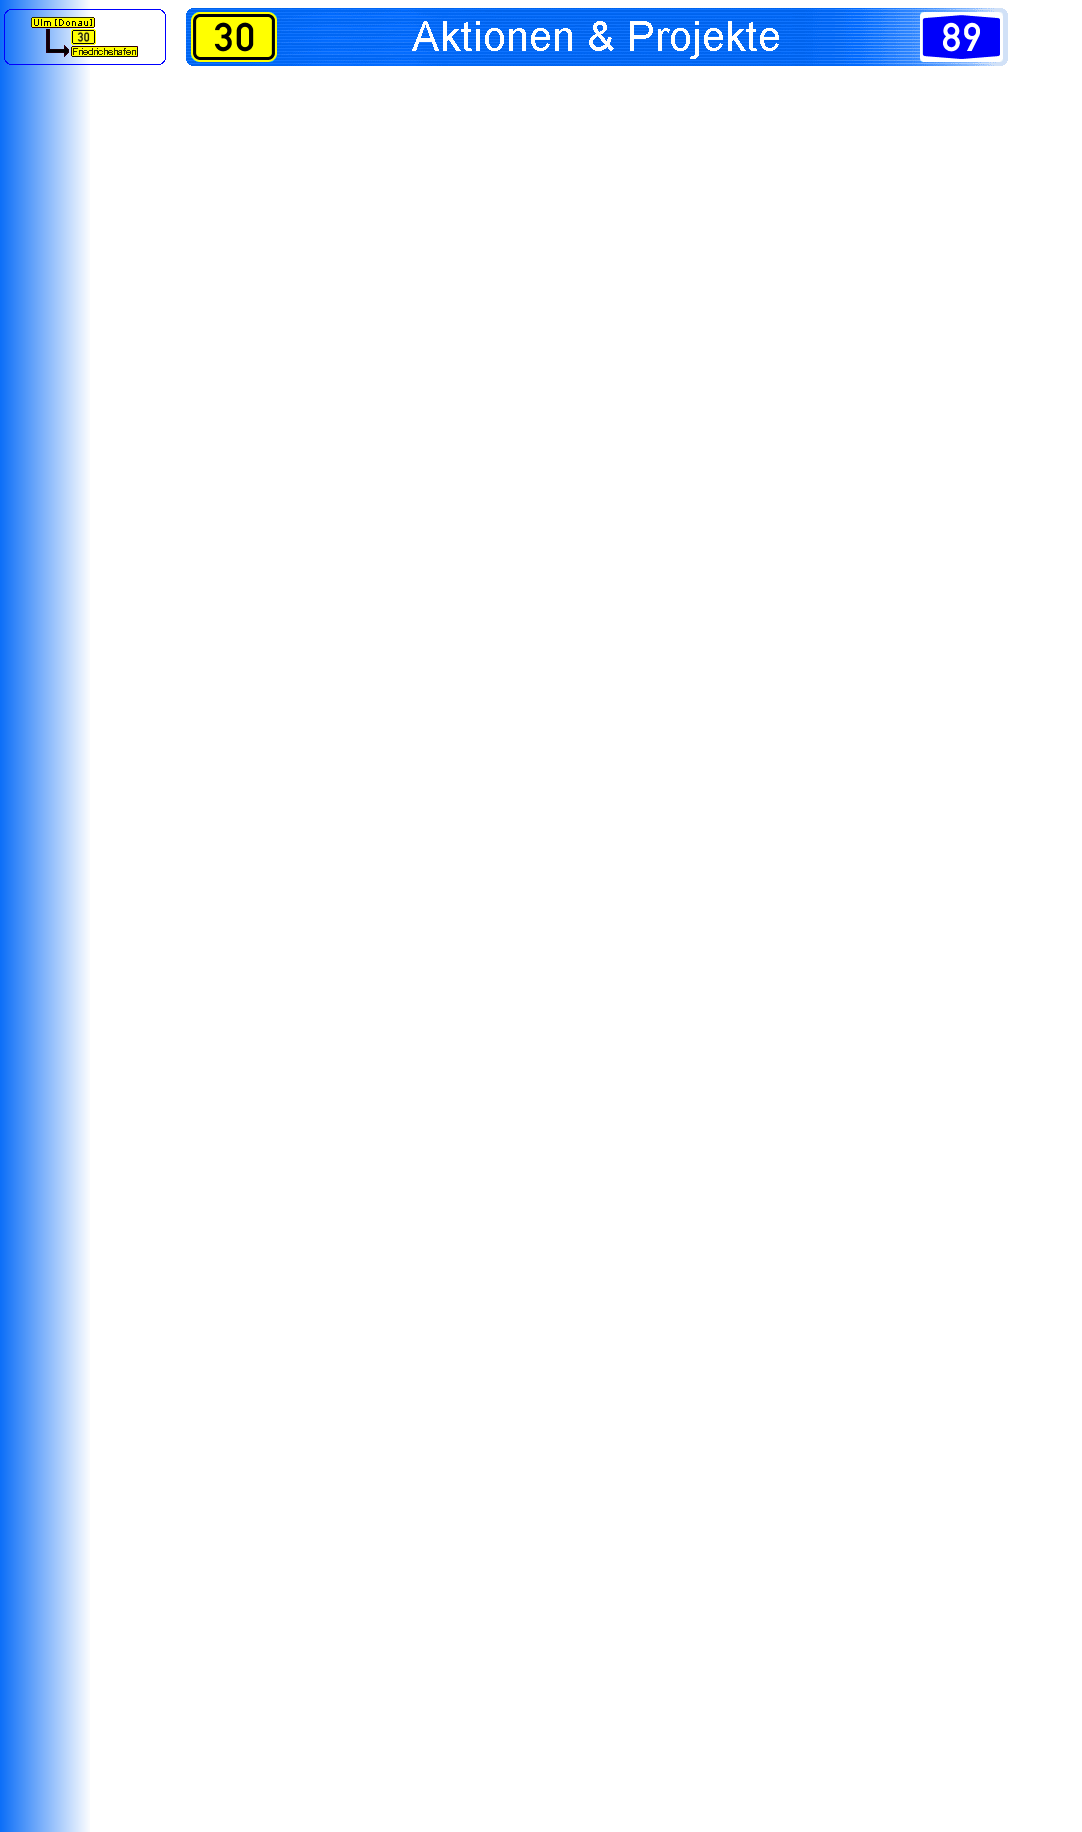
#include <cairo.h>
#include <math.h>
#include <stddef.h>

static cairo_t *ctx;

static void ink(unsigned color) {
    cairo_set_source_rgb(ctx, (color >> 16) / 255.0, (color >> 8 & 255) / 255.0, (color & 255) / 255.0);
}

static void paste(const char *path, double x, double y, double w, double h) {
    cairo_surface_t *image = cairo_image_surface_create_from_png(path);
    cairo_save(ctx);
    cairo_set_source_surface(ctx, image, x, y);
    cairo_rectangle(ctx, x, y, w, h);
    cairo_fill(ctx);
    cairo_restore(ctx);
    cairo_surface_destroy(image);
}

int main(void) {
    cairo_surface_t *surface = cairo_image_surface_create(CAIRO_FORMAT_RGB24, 1082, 1832);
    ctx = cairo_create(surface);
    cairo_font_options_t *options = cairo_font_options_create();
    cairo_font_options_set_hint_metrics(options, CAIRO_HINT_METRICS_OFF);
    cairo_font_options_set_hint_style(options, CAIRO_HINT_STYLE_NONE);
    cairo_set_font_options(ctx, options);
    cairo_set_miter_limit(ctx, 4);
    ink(0xffffff);
    cairo_paint(ctx);
    paste("pic1.png", 0, 0, 90, 1832);
    paste("pic2.png", 4, 9, 162, 56);
    paste("pic3.png", 186, 8, 822, 58);
    cairo_surface_write_to_png(surface, "screenshot.png");
    cairo_font_options_destroy(options);
    cairo_destroy(ctx);
    cairo_surface_destroy(surface);
    return 0;
}
